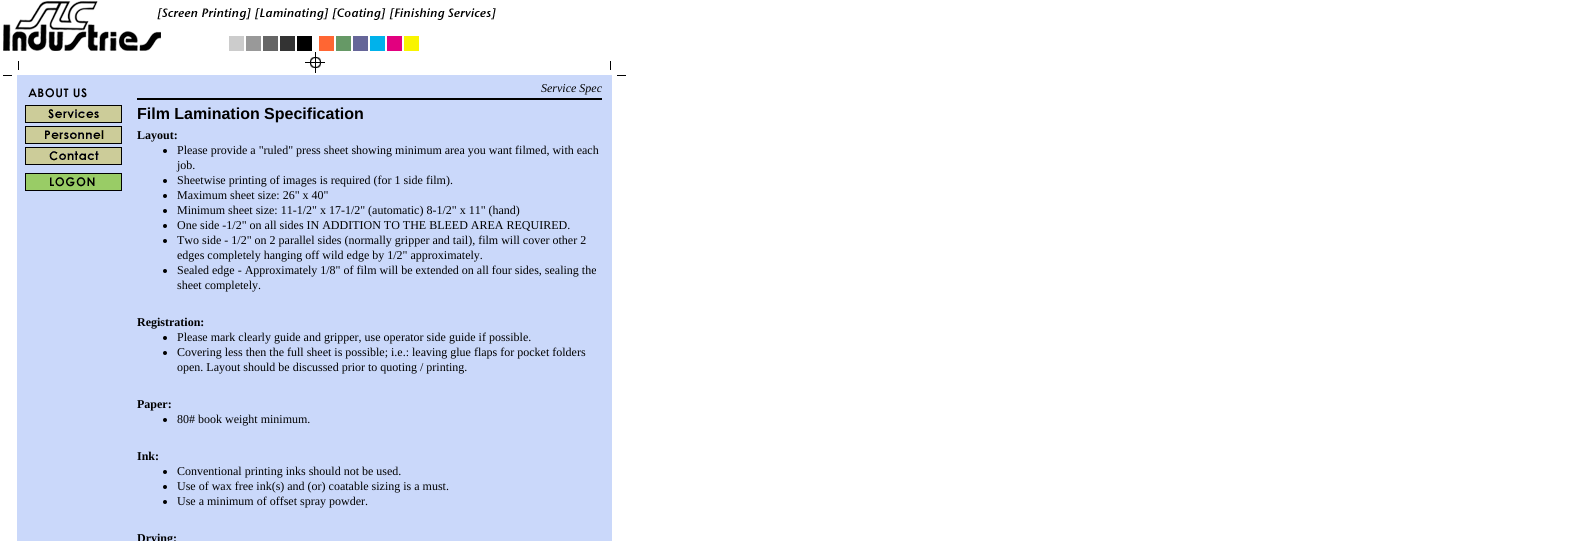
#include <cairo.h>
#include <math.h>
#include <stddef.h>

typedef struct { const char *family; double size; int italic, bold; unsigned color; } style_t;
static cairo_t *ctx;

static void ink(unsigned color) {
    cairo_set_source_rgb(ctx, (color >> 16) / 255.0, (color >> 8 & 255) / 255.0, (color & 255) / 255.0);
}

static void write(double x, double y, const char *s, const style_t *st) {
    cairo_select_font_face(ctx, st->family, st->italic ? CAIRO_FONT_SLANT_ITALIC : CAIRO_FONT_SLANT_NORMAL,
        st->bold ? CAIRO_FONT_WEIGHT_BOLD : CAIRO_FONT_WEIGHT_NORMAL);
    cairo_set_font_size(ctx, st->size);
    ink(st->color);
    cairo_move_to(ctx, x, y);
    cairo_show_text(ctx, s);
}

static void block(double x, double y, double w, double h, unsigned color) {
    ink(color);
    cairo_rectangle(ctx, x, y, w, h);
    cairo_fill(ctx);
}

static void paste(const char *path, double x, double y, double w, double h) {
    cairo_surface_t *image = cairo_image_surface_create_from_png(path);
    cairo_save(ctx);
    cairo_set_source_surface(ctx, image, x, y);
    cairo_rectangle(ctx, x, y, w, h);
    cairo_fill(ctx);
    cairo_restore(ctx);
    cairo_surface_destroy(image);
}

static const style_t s1 = {"Liberation Serif", 12, 1, 0, 0x000000};
static const style_t s2 = {"Liberation Sans", 16, 0, 1, 0x000000};
static const style_t s3 = {"Liberation Serif", 12, 0, 1, 0x000000};
static const style_t s4 = {"Liberation Serif", 12, 0, 0, 0x000000};

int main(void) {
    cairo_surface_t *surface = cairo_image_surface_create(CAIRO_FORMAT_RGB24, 1582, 541);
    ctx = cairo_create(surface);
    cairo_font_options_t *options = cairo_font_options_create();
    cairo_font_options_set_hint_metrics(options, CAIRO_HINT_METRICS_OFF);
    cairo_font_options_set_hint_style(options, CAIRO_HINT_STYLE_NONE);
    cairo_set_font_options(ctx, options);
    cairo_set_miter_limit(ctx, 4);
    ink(0xffffff);
    cairo_paint(ctx);
    paste("pic1.png", 3, 1, 623, 75);
    block(17, 76, 595, 465, 0xcad8fa);
    paste("pic2.png", 28, 88, 59, 10);
    paste("pic3.png", 25, 105, 97, 18);
    paste("pic4.png", 25, 126, 97, 18);
    paste("pic5.png", 25, 147, 97, 18);
    paste("pic6.png", 25, 173, 97, 18);
    write(541, 92, "Service Spec", &s1);
    block(137, 98, 465, 2, 0x000000);
    write(137, 119, "Film Lamination Specification", &s2);
    write(137, 139, "Layout:", &s3);
    cairo_new_path(ctx);
    cairo_arc(ctx, 165, 151, 2, 0, 2 * M_PI);
    cairo_fill(ctx);
    write(177, 154, "Please provide a \"ruled\" press sheet showing minimum area you want filmed, with each", &s4);
    write(177, 169, "job.", &s4);
    cairo_new_path(ctx);
    cairo_arc(ctx, 165, 181, 2, 0, 2 * M_PI);
    cairo_fill(ctx);
    write(177, 184, "Sheetwise printing of images is required (for 1 side film).", &s4);
    cairo_new_path(ctx);
    cairo_arc(ctx, 165, 196, 2, 0, 2 * M_PI);
    cairo_fill(ctx);
    write(177, 199, "Maximum sheet size: 26\" x 40\"", &s4);
    cairo_new_path(ctx);
    cairo_arc(ctx, 165, 211, 2, 0, 2 * M_PI);
    cairo_fill(ctx);
    write(177, 214, "Minimum sheet size: 11-1/2\" x 17-1/2\" (automatic) 8-1/2\" x 11\" (hand)", &s4);
    cairo_new_path(ctx);
    cairo_arc(ctx, 165, 226, 2, 0, 2 * M_PI);
    cairo_fill(ctx);
    write(177, 229, "One side -1/2\" on all sides IN ADDITION TO THE BLEED AREA REQUIRED.", &s4);
    cairo_new_path(ctx);
    cairo_arc(ctx, 165, 241, 2, 0, 2 * M_PI);
    cairo_fill(ctx);
    write(177, 244, "Two side - 1/2\" on 2 parallel sides (normally gripper and tail), film will cover other 2", &s4);
    write(177, 259, "edges completely hanging off wild edge by 1/2\" approximately.", &s4);
    cairo_new_path(ctx);
    cairo_arc(ctx, 165, 271, 2, 0, 2 * M_PI);
    cairo_fill(ctx);
    write(177, 274, "Sealed edge - Approximately 1/8\" of film will be extended on all four sides, sealing the", &s4);
    write(177, 289, "sheet completely.", &s4);
    write(137, 326, "Registration:", &s3);
    cairo_new_path(ctx);
    cairo_arc(ctx, 165, 338, 2, 0, 2 * M_PI);
    cairo_fill(ctx);
    write(177, 341, "Please mark clearly guide and gripper, use operator side guide if possible.", &s4);
    cairo_new_path(ctx);
    cairo_arc(ctx, 165, 353, 2, 0, 2 * M_PI);
    cairo_fill(ctx);
    write(177, 356, "Covering less then the full sheet is possible; i.e.: leaving glue flaps for pocket folders", &s4);
    write(177, 371, "open. Layout should be discussed prior to quoting / printing.", &s4);
    write(137, 408, "Paper:", &s3);
    cairo_new_path(ctx);
    cairo_arc(ctx, 165, 420, 2, 0, 2 * M_PI);
    cairo_fill(ctx);
    write(177, 423, "80# book weight minimum.", &s4);
    write(137, 460, "Ink:", &s3);
    cairo_new_path(ctx);
    cairo_arc(ctx, 165, 472, 2, 0, 2 * M_PI);
    cairo_fill(ctx);
    write(177, 475, "Conventional printing inks should not be used.", &s4);
    cairo_new_path(ctx);
    cairo_arc(ctx, 165, 487, 2, 0, 2 * M_PI);
    cairo_fill(ctx);
    write(177, 490, "Use of wax free ink(s) and (or) coatable sizing is a must.", &s4);
    cairo_new_path(ctx);
    cairo_arc(ctx, 165, 502, 2, 0, 2 * M_PI);
    cairo_fill(ctx);
    write(177, 505, "Use a minimum of offset spray powder.", &s4);
    write(137, 542, "Drying:", &s3);
    cairo_surface_write_to_png(surface, "screenshot.png");
    cairo_font_options_destroy(options);
    cairo_destroy(ctx);
    cairo_surface_destroy(surface);
    return 0;
}
